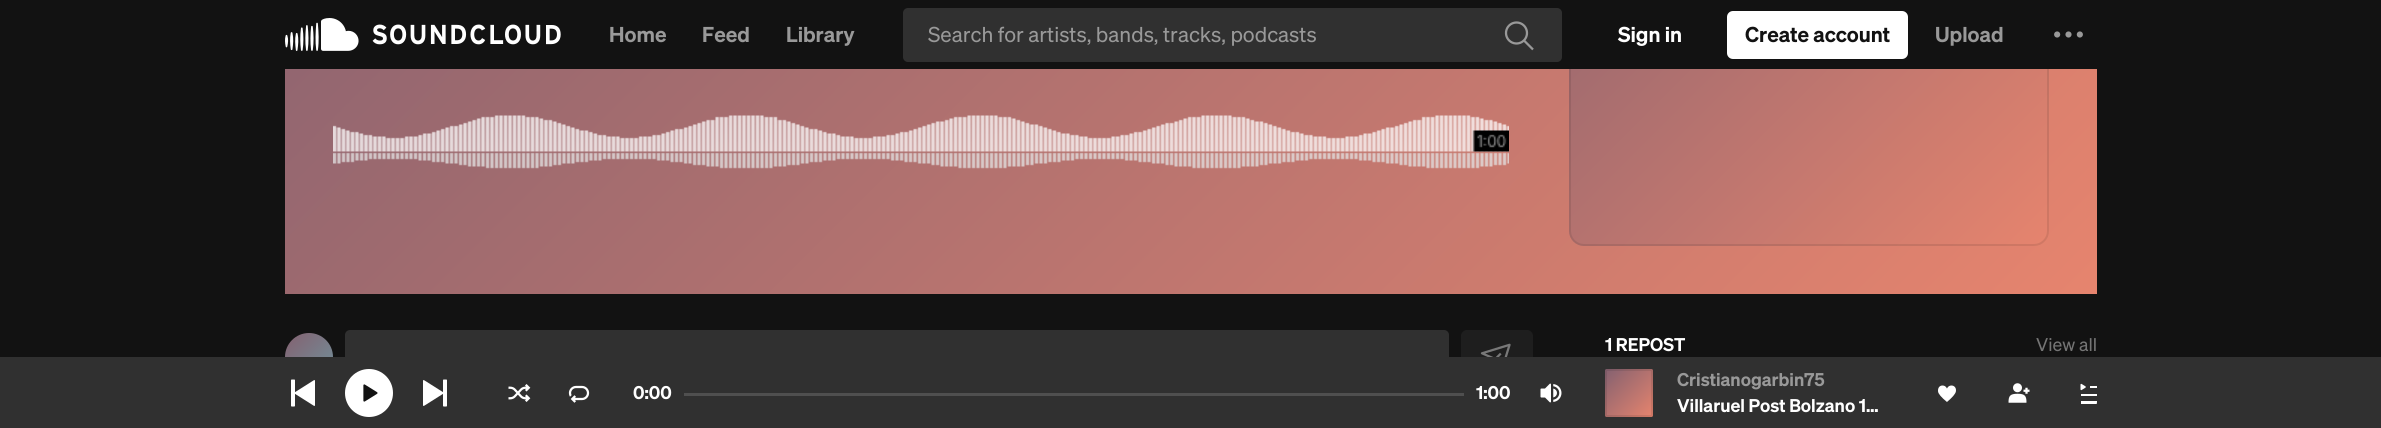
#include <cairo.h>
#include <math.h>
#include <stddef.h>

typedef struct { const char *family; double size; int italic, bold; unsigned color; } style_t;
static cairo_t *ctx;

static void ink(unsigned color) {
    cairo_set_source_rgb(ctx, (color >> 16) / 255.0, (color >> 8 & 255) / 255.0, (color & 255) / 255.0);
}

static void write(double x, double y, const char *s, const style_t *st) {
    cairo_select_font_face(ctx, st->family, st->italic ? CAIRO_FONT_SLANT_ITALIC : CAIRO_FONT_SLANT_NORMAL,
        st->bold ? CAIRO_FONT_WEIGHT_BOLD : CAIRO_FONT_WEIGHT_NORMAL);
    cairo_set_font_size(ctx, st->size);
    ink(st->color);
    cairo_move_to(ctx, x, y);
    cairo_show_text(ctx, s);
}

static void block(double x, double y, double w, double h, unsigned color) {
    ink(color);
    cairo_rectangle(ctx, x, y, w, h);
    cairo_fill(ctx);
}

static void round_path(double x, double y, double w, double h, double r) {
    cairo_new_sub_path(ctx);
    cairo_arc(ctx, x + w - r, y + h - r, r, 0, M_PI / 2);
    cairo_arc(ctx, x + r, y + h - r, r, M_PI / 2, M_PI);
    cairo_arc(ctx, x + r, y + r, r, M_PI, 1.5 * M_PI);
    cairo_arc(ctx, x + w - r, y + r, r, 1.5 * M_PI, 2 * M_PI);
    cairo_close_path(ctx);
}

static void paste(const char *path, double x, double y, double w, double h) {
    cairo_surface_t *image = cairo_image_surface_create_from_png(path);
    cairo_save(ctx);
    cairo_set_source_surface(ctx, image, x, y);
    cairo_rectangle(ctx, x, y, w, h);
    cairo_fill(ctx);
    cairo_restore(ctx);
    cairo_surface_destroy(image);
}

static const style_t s1 = {"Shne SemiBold", 21, 0, 0, 0x999999};
static const style_t s2 = {"Shne", 21, 0, 0, 0x999999};
static const style_t s3 = {"Shne SemiBold", 21, 0, 0, 0xffffff};
static const style_t s4 = {"Shne SemiBold", 21, 0, 0, 0x121212};
static const style_t s5 = {"Shne SemiBold", 18, 0, 0, 0xffffff};
static const style_t s6 = {"Shne", 18, 0, 0, 0x757575};
static const style_t s7 = {"Shne SemiBold", 18, 0, 0, 0x999999};

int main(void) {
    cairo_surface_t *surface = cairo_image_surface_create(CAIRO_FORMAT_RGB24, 2381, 428);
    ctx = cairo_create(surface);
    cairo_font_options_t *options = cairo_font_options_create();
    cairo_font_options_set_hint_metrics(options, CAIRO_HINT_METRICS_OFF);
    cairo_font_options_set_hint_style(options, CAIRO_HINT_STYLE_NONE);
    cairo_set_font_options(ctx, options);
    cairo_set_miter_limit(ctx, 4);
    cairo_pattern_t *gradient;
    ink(0x121212);
    cairo_paint(ctx);
    gradient = cairo_pattern_create_linear(594, -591, 1788, 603);
    cairo_pattern_add_color_stop_rgba(gradient, 0, 0.518, 0.38, 0.439, 1);
    cairo_pattern_add_color_stop_rgba(gradient, 1, 0.902, 0.518, 0.431, 1);
    cairo_set_source(ctx, gradient);
    cairo_pattern_destroy(gradient);
    cairo_rectangle(ctx, 285, 69, 1812, 225);
    cairo_fill(ctx);
    gradient = cairo_pattern_create_linear(1569, -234, 2049, 246);
    cairo_pattern_add_color_stop_rgba(gradient, 0, 0.518, 0.38, 0.439, 1);
    cairo_pattern_add_color_stop_rgba(gradient, 1, 0.902, 0.518, 0.431, 1);
    cairo_set_source(ctx, gradient);
    cairo_pattern_destroy(gradient);
    round_path(1569, -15, 480, 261, 15);
    cairo_fill(ctx);
    round_path(1570, -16, 478, 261, 14);
    cairo_set_source_rgba(ctx, 0.071, 0.071, 0.071, 0.1);
    cairo_stroke(ctx);
    block(1569, 0, 480, 69, 0x121212);
    paste("pic1.png", 285, 18, 276, 33);
    write(609, 42, "Home", &s1);
    write(702, 42, "Feed", &s1);
    write(786, 42, "Library", &s1);
    ink(0x303030);
    round_path(903, 8, 659, 54, 5);
    cairo_fill(ctx);
    write(928, 42, "Search for artists, bands, tracks, podcasts", &s2);
    paste("pic2.png", 1504, 21, 30, 30);
    write(1618, 42, "Sign in", &s3);
    round_path(1727, 11, 181, 48, 6);
    cairo_fill(ctx);
    write(1745, 42, "Create account", &s4);
    write(1935, 42, "Upload", &s1);
    paste("pic3.png", 2054, 31, 29, 7);
    paste("pic4.png", 333, 115, 1176, 54);
    paste("pic5.png", 1472, 130, 37, 22);
    gradient = cairo_pattern_create_linear(285, 333, 333, 381);
    cairo_pattern_add_color_stop_rgba(gradient, 0, 0.518, 0.38, 0.439, 1);
    cairo_pattern_add_color_stop_rgba(gradient, 1, 0.439, 0.573, 0.612, 1);
    cairo_set_source(ctx, gradient);
    cairo_pattern_destroy(gradient);
    cairo_arc(ctx, 309, 357, 24, 0, 2 * M_PI);
    cairo_fill(ctx);
    ink(0x303030);
    round_path(345, 330, 1104, 54, 5);
    cairo_fill(ctx);
    ink(0x1e1e1e);
    round_path(1461, 330, 72, 54, 6);
    cairo_fill(ctx);
    paste("pic6.png", 1480, 343, 31, 14);
    write(1605, 351, "1 REPOST", &s5);
    write(2036, 351, "View all", &s6);
    block(0, 357, 2381, 71, 0x303030);
    paste("pic7.png", 291, 379, 24, 28);
    ink(0xffffff);
    cairo_arc(ctx, 369, 393, 24, 0, 2 * M_PI);
    cairo_fill(ctx);
    paste("pic8.png", 363, 384, 15, 18);
    paste("pic9.png", 423, 379, 24, 28);
    paste("pic10.png", 508, 384, 23, 18);
    paste("pic11.png", 568, 385, 22, 18);
    write(633, 399, "0:00", &s5);
    block(684, 393, 780, 3, 0x4f4f4f);
    write(1476, 399, "1:00", &s5);
    paste("pic12.png", 1540, 383, 22, 20);
    gradient = cairo_pattern_create_linear(1605, 369, 1653, 417);
    cairo_pattern_add_color_stop_rgba(gradient, 0, 0.518, 0.38, 0.439, 1);
    cairo_pattern_add_color_stop_rgba(gradient, 1, 0.902, 0.518, 0.431, 1);
    cairo_set_source(ctx, gradient);
    cairo_pattern_destroy(gradient);
    round_path(1605, 369, 48, 48, 1.5);
    cairo_fill(ctx);
    cairo_rectangle(ctx, 1606, 370, 46, 46);
    cairo_set_source_rgba(ctx, 0.071, 0.071, 0.071, 0.1);
    cairo_stroke(ctx);
    write(1677, 386, "Cristianogarbin75", &s7);
    write(1677, 412, "Villaruel Post Bolzano 1…", &s5);
    paste("pic13.png", 1938, 385, 18, 17);
    paste("pic14.png", 2008, 383, 22, 20);
    paste("pic15.png", 2080, 383, 17, 21);
    cairo_surface_write_to_png(surface, "screenshot.png");
    cairo_font_options_destroy(options);
    cairo_destroy(ctx);
    cairo_surface_destroy(surface);
    return 0;
}
